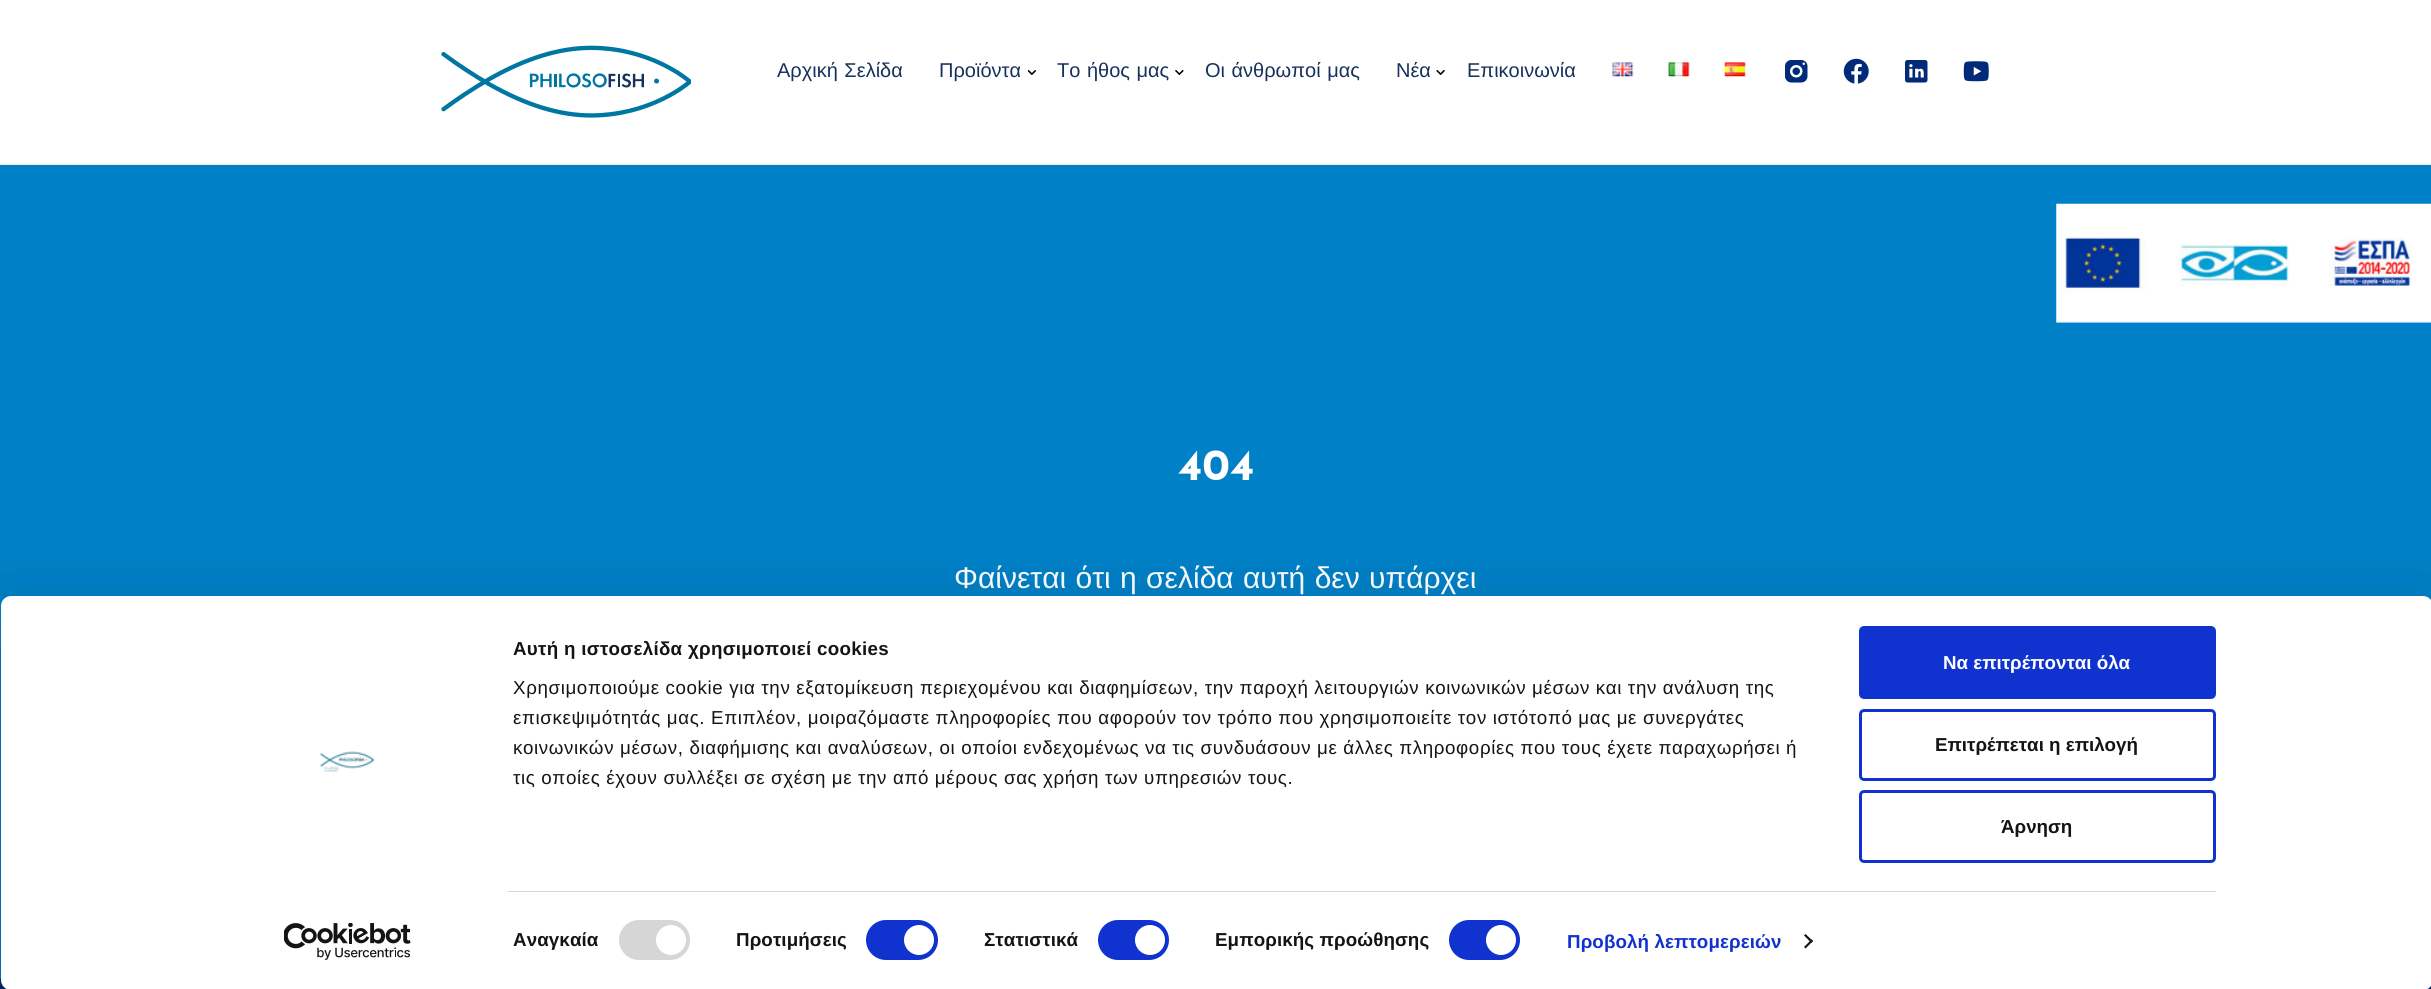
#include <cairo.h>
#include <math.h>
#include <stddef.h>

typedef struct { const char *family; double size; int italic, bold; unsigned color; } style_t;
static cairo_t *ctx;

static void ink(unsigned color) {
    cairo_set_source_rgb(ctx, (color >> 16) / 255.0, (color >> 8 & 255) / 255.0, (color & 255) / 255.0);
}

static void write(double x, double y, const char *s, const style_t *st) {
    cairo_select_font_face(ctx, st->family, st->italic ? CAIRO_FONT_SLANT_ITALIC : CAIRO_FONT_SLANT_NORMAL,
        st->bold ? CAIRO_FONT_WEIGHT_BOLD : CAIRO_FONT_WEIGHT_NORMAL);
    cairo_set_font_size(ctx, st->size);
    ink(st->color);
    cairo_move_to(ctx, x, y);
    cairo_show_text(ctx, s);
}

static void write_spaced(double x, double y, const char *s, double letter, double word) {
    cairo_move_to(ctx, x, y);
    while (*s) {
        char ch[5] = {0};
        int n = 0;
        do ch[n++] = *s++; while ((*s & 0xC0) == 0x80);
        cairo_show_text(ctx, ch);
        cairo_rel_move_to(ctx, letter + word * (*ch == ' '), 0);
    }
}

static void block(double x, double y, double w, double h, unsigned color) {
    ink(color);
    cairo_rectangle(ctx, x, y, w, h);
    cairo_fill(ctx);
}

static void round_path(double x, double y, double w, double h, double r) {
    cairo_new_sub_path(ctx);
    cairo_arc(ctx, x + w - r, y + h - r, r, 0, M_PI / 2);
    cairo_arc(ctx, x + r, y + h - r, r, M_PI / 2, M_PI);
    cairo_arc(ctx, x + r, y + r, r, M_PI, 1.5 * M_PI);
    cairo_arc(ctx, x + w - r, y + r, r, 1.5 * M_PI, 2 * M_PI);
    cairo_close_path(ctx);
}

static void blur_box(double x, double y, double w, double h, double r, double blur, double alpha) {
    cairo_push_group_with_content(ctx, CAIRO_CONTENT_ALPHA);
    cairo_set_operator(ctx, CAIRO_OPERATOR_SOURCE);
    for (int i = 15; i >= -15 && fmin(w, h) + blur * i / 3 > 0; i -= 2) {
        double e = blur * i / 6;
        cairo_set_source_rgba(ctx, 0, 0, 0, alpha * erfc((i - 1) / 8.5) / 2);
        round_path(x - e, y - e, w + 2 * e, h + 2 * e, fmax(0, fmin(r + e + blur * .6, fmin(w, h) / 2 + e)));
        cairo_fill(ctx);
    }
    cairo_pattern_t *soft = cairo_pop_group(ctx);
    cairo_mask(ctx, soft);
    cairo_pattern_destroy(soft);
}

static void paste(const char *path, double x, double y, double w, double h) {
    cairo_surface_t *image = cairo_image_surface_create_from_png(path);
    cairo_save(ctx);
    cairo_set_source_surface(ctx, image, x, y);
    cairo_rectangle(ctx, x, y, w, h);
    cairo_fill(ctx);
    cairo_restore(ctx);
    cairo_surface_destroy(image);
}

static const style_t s1 = {"Liberation Sans", 20, 0, 0, 0x16325c};
static const style_t s2 = {"Josefin Sans", 44, 0, 1, 0xffffff};
static const style_t s3 = {"Liberation Sans", 18.75, 0, 1, 0xffffff};
static const style_t s4 = {"Liberation Sans", 18.75, 0, 1, 0x141414};

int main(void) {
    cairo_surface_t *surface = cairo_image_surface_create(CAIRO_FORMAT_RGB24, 2431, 989);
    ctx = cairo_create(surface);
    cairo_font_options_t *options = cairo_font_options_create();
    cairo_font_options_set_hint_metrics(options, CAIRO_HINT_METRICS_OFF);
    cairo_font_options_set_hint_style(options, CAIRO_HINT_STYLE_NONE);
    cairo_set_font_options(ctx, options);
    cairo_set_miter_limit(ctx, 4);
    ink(0xffffff);
    cairo_paint(ctx);
    block(0, 164, 2431, 1, 0xeaecf0);
    paste("pic1.png", 441, 45, 250, 73);
    cairo_select_font_face(ctx, "Liberation Sans", CAIRO_FONT_SLANT_NORMAL, CAIRO_FONT_WEIGHT_NORMAL);
    cairo_set_font_size(ctx, 20);
    ink(0x16325c);
    write_spaced(777, 77, "Αρχική Σελίδα", 0, 1);
    write(939, 77, "Προϊόντα", &s1);
    paste("pic2.png", 1028, 70, 8, 5);
    write_spaced(1057, 77, "Το ήθος μας", 0, 1);
    paste("pic3.png", 1175, 70, 9, 5);
    write_spaced(1205, 77, "Οι άνθρωποί μας", 0, 1);
    write(1396, 77, "Νέα", &s1);
    paste("pic4.png", 1436, 70, 9, 5);
    write(1467, 77, "Επικοινωνία", &s1);
    paste("pic5.png", 1612, 62, 22, 15);
    paste("pic6.png", 1668, 62, 22, 15);
    paste("pic7.png", 1724, 62, 22, 15);
    paste("pic8.png", 1785, 60, 23, 23);
    paste("pic9.png", 1843, 58, 26, 26);
    paste("pic10.png", 1905, 60, 23, 23);
    paste("pic11.png", 1963, 61, 26, 21);
    block(0, 165, 2431, 814, 0x0081c7);
    paste("pic12.png", 2056, 203, 375, 120);
    write(1178, 480, "404", &s2);
    cairo_select_font_face(ctx, "Liberation Sans", CAIRO_FONT_SLANT_NORMAL, CAIRO_FONT_WEIGHT_NORMAL);
    cairo_set_font_size(ctx, 30);
    write_spaced(954, 588, "Φαίνεται ότι η σελίδα αυτή δεν υπάρχει", 0, 1);
    block(0, 979, 2431, 10, 0x012a79);
    ink(0x000000);
    blur_box(1, 634, 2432, 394, 10, 44, 0.3);
    ink(0xffffff);
    round_path(1, 596, 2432, 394, 10);
    cairo_fill(ctx);
    paste("pic13.png", 319, 751, 56, 22);
    paste("pic14.png", 284, 923, 127, 37);
    cairo_select_font_face(ctx, "Liberation Sans", CAIRO_FONT_SLANT_NORMAL, CAIRO_FONT_WEIGHT_BOLD);
    cairo_set_font_size(ctx, 18.75);
    ink(0x141414);
    write_spaced(513, 655, "Αυτή η ιστοσελίδα χρησιμοποιεί cookies", 0.3, 0);
    cairo_select_font_face(ctx, "Liberation Sans", CAIRO_FONT_SLANT_NORMAL, CAIRO_FONT_WEIGHT_NORMAL);
    write_spaced(513, 694, "Χρησιμοποιούμε cookie για την εξατομίκευση περιεχομένου και διαφημίσεων, την παροχή λειτουργιών κοινωνικών μέσων και την ανάλυση της", 0.62, 0);
    write_spaced(513, 724, "επισκεψιμότητάς μας. Επιπλέον, μοιραζόμαστε πληροφορίες που αφορούν τον τρόπο που χρησιμοποιείτε τον ιστότοπό μας με συνεργάτες", 0.62, 0);
    write_spaced(513, 754, "κοινωνικών μέσων, διαφήμισης και αναλύσεων, οι οποίοι ενδεχομένως να τις συνδυάσουν με άλλες πληροφορίες που τους έχετε παραχωρήσει ή", 0.62, 0);
    write_spaced(513, 784, "τις οποίες έχουν συλλέξει σε σχέση με την από μέρους σας χρήση των υπηρεσιών τους.", 0.62, 0);
    block(508, 891, 1708, 1, 0xd6d6d6);
    cairo_select_font_face(ctx, "Liberation Sans", CAIRO_FONT_SLANT_NORMAL, CAIRO_FONT_WEIGHT_BOLD);
    ink(0x141414);
    write_spaced(513, 946, "Αναγκαία", 0.1, 0);
    ink(0xd6d6d6);
    round_path(619, 920, 71, 40, 20);
    cairo_fill(ctx);
    ink(0xffffff);
    cairo_arc(ctx, 671, 940, 15, 0, 2 * M_PI);
    cairo_fill(ctx);
    ink(0x141414);
    write_spaced(736, 946, "Προτιμήσεις", 0.1, 0);
    ink(0x1032cf);
    round_path(866, 920, 72, 40, 20);
    cairo_fill(ctx);
    ink(0xffffff);
    cairo_arc(ctx, 919, 940, 15, 0, 2 * M_PI);
    cairo_fill(ctx);
    ink(0x141414);
    write_spaced(984, 946, "Στατιστικά", 0.1, 0);
    ink(0x1032cf);
    round_path(1098, 920, 71, 40, 20);
    cairo_fill(ctx);
    ink(0xffffff);
    cairo_arc(ctx, 1150, 940, 15, 0, 2 * M_PI);
    cairo_fill(ctx);
    ink(0x141414);
    write_spaced(1215, 946, "Εμπορικής προώθησης", 0.1, 0);
    ink(0x1032cf);
    round_path(1449, 920, 71, 40, 20);
    cairo_fill(ctx);
    ink(0xffffff);
    cairo_arc(ctx, 1501, 940, 15, 0, 2 * M_PI);
    cairo_fill(ctx);
    ink(0x1032cf);
    write_spaced(1567, 948, "Προβολή λεπτομερειών", 0.1, 0);
    ink(0x141414);
    cairo_new_path(ctx);
    cairo_move_to(ctx, 1805.5, 934);
    cairo_line_to(ctx, 1813, 941);
    cairo_line_to(ctx, 1811.5, 943);
    cairo_line_to(ctx, 1804, 935.5);
    cairo_close_path(ctx);
    cairo_fill(ctx);
    cairo_new_path(ctx);
    cairo_move_to(ctx, 1811.5, 939.5);
    cairo_line_to(ctx, 1813, 941);
    cairo_line_to(ctx, 1805.5, 948.5);
    cairo_line_to(ctx, 1804, 947);
    cairo_close_path(ctx);
    cairo_fill(ctx);
    ink(0x1032cf);
    round_path(1860.5, 627.5, 354, 70, 3.5);
    cairo_fill_preserve(ctx);
    cairo_set_line_width(ctx, 3);
    cairo_stroke(ctx);
    write(1943, 669, "Να επιτρέπονται όλα", &s3);
    round_path(1860.5, 710.5, 354, 69, 3.5);
    ink(0x1032cf);
    cairo_stroke(ctx);
    write(1935, 751, "Επιτρέπεται η επιλογή", &s4);
    round_path(1860.5, 791.5, 354, 70, 3.5);
    ink(0x1032cf);
    cairo_stroke(ctx);
    write(2001, 833, "Άρνηση", &s4);
    cairo_surface_write_to_png(surface, "screenshot.png");
    cairo_font_options_destroy(options);
    cairo_destroy(ctx);
    cairo_surface_destroy(surface);
    return 0;
}
